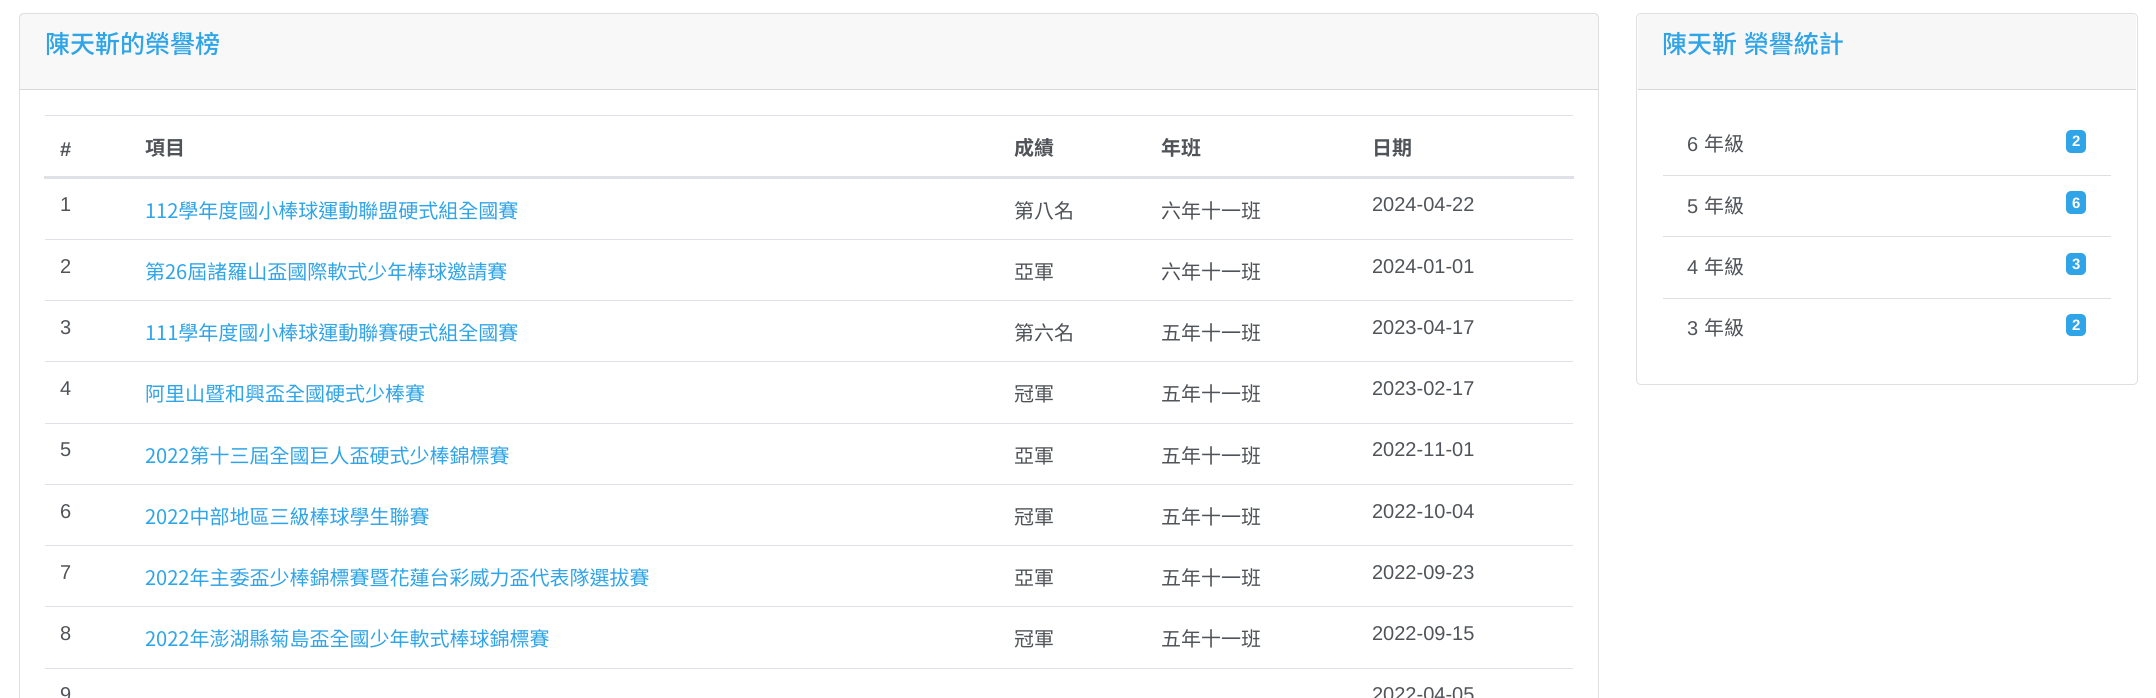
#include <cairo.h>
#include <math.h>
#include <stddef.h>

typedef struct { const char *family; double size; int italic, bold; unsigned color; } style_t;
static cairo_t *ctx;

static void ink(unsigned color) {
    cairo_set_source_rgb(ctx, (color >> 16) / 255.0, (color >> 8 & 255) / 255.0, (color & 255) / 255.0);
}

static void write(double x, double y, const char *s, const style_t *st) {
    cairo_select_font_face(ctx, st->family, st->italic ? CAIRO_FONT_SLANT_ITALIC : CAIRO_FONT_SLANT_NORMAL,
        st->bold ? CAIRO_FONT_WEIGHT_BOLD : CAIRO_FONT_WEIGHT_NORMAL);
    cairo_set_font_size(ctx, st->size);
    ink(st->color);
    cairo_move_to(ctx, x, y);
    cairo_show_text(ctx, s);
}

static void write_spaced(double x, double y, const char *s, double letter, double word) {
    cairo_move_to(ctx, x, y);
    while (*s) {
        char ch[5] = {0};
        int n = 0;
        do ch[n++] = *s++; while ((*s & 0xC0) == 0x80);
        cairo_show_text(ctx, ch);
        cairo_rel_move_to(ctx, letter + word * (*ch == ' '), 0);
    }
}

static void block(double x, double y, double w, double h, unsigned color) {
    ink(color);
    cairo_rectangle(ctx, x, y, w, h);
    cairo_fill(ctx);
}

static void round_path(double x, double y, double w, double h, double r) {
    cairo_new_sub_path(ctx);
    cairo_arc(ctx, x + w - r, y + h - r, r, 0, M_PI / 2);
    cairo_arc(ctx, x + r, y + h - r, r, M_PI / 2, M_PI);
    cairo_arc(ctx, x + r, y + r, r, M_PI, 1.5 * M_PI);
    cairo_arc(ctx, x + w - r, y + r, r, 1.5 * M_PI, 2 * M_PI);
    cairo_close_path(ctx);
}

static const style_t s1 = {"Noto Sans TC Medium", 25, 0, 0, 0x2fa4e7};
static const style_t s2 = {"Liberation Sans", 20, 0, 1, 0x505458};
static const style_t s3 = {"Noto Sans TC", 20, 0, 1, 0x505458};
static const style_t s4 = {"Liberation Sans", 20, 0, 0, 0x505458};
static const style_t s5 = {"Noto Sans TC", 20, 0, 0, 0x2fa4e7};
static const style_t s6 = {"Noto Sans TC", 20, 0, 0, 0x505458};
static const style_t s7 = {"Liberation Sans", 15, 0, 1, 0xffffff};

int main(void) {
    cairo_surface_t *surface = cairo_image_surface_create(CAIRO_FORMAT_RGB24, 2156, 698);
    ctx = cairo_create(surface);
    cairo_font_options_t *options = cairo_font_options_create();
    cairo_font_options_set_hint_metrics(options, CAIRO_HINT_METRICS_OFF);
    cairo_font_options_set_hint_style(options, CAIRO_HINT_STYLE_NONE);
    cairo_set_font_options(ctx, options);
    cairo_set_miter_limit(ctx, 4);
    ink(0xffffff);
    cairo_paint(ctx);
    round_path(19.5, 13.5, 1579, 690, 4.5);
    ink(0xdfdfdf);
    cairo_set_line_width(ctx, 1);
    cairo_stroke(ctx);
    cairo_set_source_rgba(ctx, 0, 0, 0, 0.03);
    cairo_rectangle(ctx, 20, 14, 1578, 75);
    cairo_fill(ctx);
    block(20, 89, 1578, 1, 0xd8d8d8);
    write(45, 53, "陳天靳的榮譽榜", &s1);
    write(60, 156, "#", &s2);
    write(145, 155, "項目", &s3);
    write(1014, 155, "成績", &s3);
    write(1161, 155, "年班", &s3);
    block(45, 115, 1528, 1, 0xdee2e6);
    block(44, 176, 1530, 3, 0xdee2e6);
    write(1372, 155, "日期", &s3);
    write(60, 211, "1", &s4);
    write(145, 218, "112學年度國小棒球運動聯盟硬式組全國賽", &s5);
    write(1014, 218, "第八名", &s6);
    write(1161, 218, "六年十一班", &s6);
    write(1372, 211, "2024-04-22", &s4);
    write(60, 273, "2", &s4);
    write(145, 279, "第26屆諸羅山盃國際軟式少年棒球邀請賽", &s5);
    write(1014, 279, "亞軍", &s6);
    write(1161, 279, "六年十一班", &s6);
    block(45, 239, 1528, 1, 0xdee2e6);
    write(1372, 273, "2024-01-01", &s4);
    write(60, 334, "3", &s4);
    write(145, 340, "111學年度國小棒球運動聯賽硬式組全國賽", &s5);
    write(1014, 340, "第六名", &s6);
    write(1161, 340, "五年十一班", &s6);
    block(45, 300, 1528, 1, 0xdee2e6);
    write(1372, 334, "2023-04-17", &s4);
    write(60, 395, "4", &s4);
    write(145, 401, "阿里山暨和興盃全國硬式少棒賽", &s5);
    write(1014, 401, "冠軍", &s6);
    write(1161, 401, "五年十一班", &s6);
    block(45, 361, 1528, 1, 0xdee2e6);
    write(1372, 395, "2023-02-17", &s4);
    write(60, 456, "5", &s4);
    write(145, 463, "2022第十三屆全國巨人盃硬式少棒錦標賽", &s5);
    write(1014, 463, "亞軍", &s6);
    write(1161, 463, "五年十一班", &s6);
    block(45, 423, 1528, 1, 0xdee2e6);
    write(1372, 456, "2022-11-01", &s4);
    write(60, 518, "6", &s4);
    write(145, 524, "2022中部地區三級棒球學生聯賽", &s5);
    write(1014, 524, "冠軍", &s6);
    write(1161, 524, "五年十一班", &s6);
    block(45, 484, 1528, 1, 0xdee2e6);
    write(1372, 518, "2022-10-04", &s4);
    write(60, 579, "7", &s4);
    write(145, 585, "2022年主委盃少棒錦標賽暨花蓮台彩威力盃代表隊選拔賽", &s5);
    write(1014, 585, "亞軍", &s6);
    write(1161, 585, "五年十一班", &s6);
    block(45, 545, 1528, 1, 0xdee2e6);
    write(1372, 579, "2022-09-23", &s4);
    write(60, 640, "8", &s4);
    write(145, 646, "2022年澎湖縣菊島盃全國少年軟式棒球錦標賽", &s5);
    write(1014, 646, "冠軍", &s6);
    write(1161, 646, "五年十一班", &s6);
    block(45, 606, 1528, 1, 0xdee2e6);
    write(1372, 640, "2022-09-15", &s4);
    write(60, 701, "9", &s4);
    block(45, 668, 1528, 1, 0xdee2e6);
    write(1372, 701, "2022-04-05", &s4);
    round_path(1636.5, 13.5, 501, 371, 4.5);
    ink(0xdfdfdf);
    cairo_stroke(ctx);
    ink(0xf7f7f7);
    cairo_new_path(ctx);
    cairo_move_to(ctx, 1642, 14);
    cairo_line_to(ctx, 2132, 14);
    cairo_curve_to(ctx, 2134, 14, 2136, 16, 2136, 18);
    cairo_line_to(ctx, 2136, 90);
    cairo_line_to(ctx, 1638, 90);
    cairo_line_to(ctx, 1638, 18);
    cairo_curve_to(ctx, 1638, 16, 1640, 14, 1642, 14);
    cairo_close_path(ctx);
    cairo_fill(ctx);
    block(1638, 89, 498, 1, 0xd8d8d8);
    cairo_select_font_face(ctx, "Noto Sans TC Medium", CAIRO_FONT_SLANT_NORMAL, CAIRO_FONT_WEIGHT_NORMAL);
    cairo_set_font_size(ctx, 25);
    ink(0x2fa4e7);
    write_spaced(1662, 53, "陳天靳 榮譽統計", 0, 1);
    write(1687, 151, "6", &s4);
    write(1704, 151, "年級", &s6);
    ink(0x2fa4e7);
    round_path(2066, 130, 20, 23, 5);
    cairo_fill(ctx);
    write(2072, 146, "2", &s7);
    block(1663, 175, 448, 1, 0xdfdfdf);
    write(1687, 213, "5", &s4);
    write(1704, 213, "年級", &s6);
    ink(0x2fa4e7);
    round_path(2066, 191, 20, 23, 5);
    cairo_fill(ctx);
    write(2072, 208, "6", &s7);
    block(1663, 236, 448, 1, 0xdfdfdf);
    write(1687, 274, "4", &s4);
    write(1704, 274, "年級", &s6);
    ink(0x2fa4e7);
    round_path(2066, 253, 20, 22, 5);
    cairo_fill(ctx);
    write(2072, 269, "3", &s7);
    block(1663, 298, 448, 1, 0xdfdfdf);
    write(1687, 335, "3", &s4);
    write(1704, 335, "年級", &s6);
    ink(0x2fa4e7);
    round_path(2066, 314, 20, 22, 5);
    cairo_fill(ctx);
    write(2072, 330, "2", &s7);
    cairo_surface_write_to_png(surface, "screenshot.png");
    cairo_font_options_destroy(options);
    cairo_destroy(ctx);
    cairo_surface_destroy(surface);
    return 0;
}
